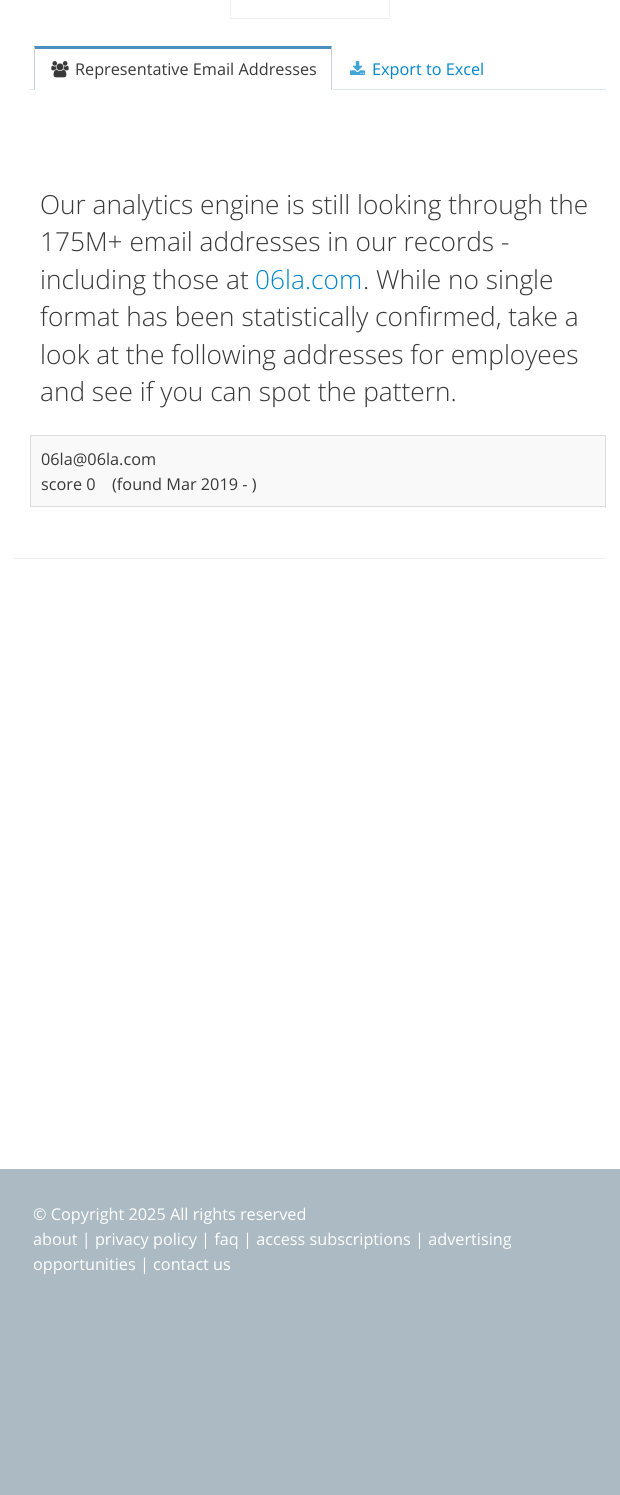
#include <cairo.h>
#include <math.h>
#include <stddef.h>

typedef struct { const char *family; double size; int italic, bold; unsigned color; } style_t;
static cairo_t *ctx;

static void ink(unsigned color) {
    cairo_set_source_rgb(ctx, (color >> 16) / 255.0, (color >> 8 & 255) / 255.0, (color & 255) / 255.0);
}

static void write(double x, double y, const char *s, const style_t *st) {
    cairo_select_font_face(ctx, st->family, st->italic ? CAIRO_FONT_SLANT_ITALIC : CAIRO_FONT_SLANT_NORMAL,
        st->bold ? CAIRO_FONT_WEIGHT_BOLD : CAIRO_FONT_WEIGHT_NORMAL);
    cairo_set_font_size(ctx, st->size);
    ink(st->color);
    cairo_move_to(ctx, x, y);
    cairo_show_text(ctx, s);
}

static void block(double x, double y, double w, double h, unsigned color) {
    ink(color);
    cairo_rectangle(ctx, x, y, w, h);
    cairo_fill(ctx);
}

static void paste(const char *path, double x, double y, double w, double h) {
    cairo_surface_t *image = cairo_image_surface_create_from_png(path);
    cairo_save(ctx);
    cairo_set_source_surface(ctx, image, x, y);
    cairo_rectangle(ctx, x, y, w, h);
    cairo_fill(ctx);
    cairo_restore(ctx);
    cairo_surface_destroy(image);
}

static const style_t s1 = {"Open Sans", 16.25, 0, 0, 0x393939};
static const style_t s2 = {"Open Sans", 16.25, 0, 0, 0x0088cc};
static const style_t s3 = {"Open Sans Light", 26.25, 0, 0, 0x393939};
static const style_t s4 = {"Open Sans Light", 26.25, 0, 0, 0x0088cc};
static const style_t s5 = {"Open Sans", 16.25, 0, 0, 0xffffff};

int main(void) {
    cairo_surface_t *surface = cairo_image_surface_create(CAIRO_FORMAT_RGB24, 620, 1495);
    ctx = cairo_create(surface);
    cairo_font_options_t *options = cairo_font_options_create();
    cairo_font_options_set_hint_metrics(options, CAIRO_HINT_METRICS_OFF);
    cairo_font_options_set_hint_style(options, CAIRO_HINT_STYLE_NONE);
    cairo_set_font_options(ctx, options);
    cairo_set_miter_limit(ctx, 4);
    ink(0xffffff);
    cairo_paint(ctx);
    cairo_rectangle(ctx, 230.5, -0.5, 159, 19);
    ink(0xf0f0f0);
    cairo_set_line_width(ctx, 1);
    cairo_stroke(ctx);
    block(30, 89, 576, 1, 0xdce8f1);
    block(34, 89, 299, 1, 0xffffff);
    ink(0x4c8fbd);
    cairo_new_path(ctx);
    cairo_move_to(ctx, 34, 46);
    cairo_line_to(ctx, 332, 46);
    cairo_line_to(ctx, 331, 49);
    cairo_line_to(ctx, 35, 49);
    cairo_close_path(ctx);
    cairo_fill(ctx);
    ink(0xc5d0dc);
    cairo_new_path(ctx);
    cairo_move_to(ctx, 332, 46);
    cairo_line_to(ctx, 332, 90);
    cairo_line_to(ctx, 331, 89);
    cairo_line_to(ctx, 331, 49);
    cairo_close_path(ctx);
    cairo_fill(ctx);
    cairo_new_path(ctx);
    cairo_move_to(ctx, 34, 90);
    cairo_line_to(ctx, 34, 46);
    cairo_line_to(ctx, 35, 49);
    cairo_line_to(ctx, 35, 89);
    cairo_close_path(ctx);
    cairo_fill(ctx);
    paste("pic1.png", 51, 61, 18, 17);
    write(75, 75, "Representative Email Addresses", &s1);
    paste("pic2.png", 350, 61, 16, 14);
    write(372, 75, "Export to Excel", &s2);
    write(40, 214, "Our analytics engine is still looking through the", &s3);
    write(40, 251, "175M+ email addresses in our records -", &s3);
    write(40, 289, "including those at", &s3);
    write(255, 289, "06la.com", &s4);
    write(363, 289, ". While no single", &s3);
    write(40, 326, "format has been statistically confirmed, take a", &s3);
    write(40, 364, "look at the following addresses for employees", &s3);
    write(40, 401, "and see if you can spot the pattern.", &s3);
    block(30, 435, 576, 1, 0xdddddd);
    block(605, 435, 1, 73, 0xdddddd);
    block(30, 506, 576, 1, 0xdddddd);
    block(31, 436, 574, 70, 0xf9f9f9);
    block(30, 436, 1, 70, 0xdddddd);
    write(41, 465, "06la@06la.com", &s1);
    write(41, 490, "score 0", &s1);
    write(112, 490, "(found Mar 2019 - )", &s1);
    block(14, 558, 592, 1, 0xeeeeee);
    block(0, 1169, 620, 326, 0xabbac3);
    write(33, 1220, "© Copyright 2025 All rights reserved", &s5);
    write(33, 1245, "about | privacy policy | faq | access subscriptions | advertising", &s5);
    write(33, 1270, "opportunities | contact us", &s5);
    cairo_surface_write_to_png(surface, "screenshot.png");
    cairo_font_options_destroy(options);
    cairo_destroy(ctx);
    cairo_surface_destroy(surface);
    return 0;
}
